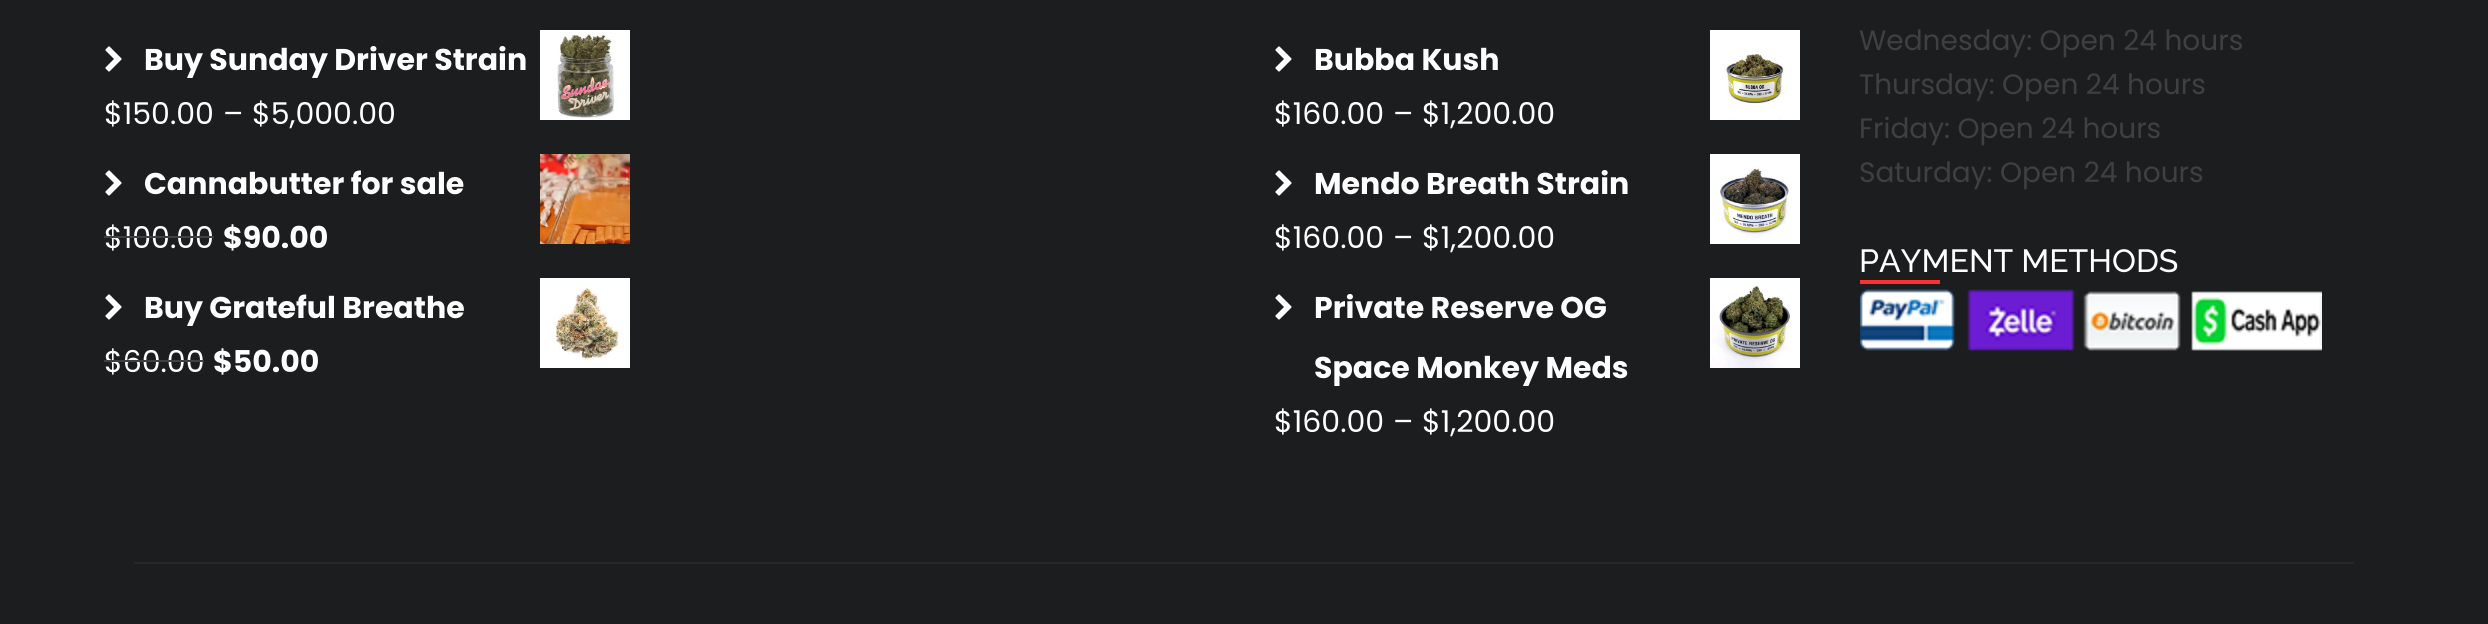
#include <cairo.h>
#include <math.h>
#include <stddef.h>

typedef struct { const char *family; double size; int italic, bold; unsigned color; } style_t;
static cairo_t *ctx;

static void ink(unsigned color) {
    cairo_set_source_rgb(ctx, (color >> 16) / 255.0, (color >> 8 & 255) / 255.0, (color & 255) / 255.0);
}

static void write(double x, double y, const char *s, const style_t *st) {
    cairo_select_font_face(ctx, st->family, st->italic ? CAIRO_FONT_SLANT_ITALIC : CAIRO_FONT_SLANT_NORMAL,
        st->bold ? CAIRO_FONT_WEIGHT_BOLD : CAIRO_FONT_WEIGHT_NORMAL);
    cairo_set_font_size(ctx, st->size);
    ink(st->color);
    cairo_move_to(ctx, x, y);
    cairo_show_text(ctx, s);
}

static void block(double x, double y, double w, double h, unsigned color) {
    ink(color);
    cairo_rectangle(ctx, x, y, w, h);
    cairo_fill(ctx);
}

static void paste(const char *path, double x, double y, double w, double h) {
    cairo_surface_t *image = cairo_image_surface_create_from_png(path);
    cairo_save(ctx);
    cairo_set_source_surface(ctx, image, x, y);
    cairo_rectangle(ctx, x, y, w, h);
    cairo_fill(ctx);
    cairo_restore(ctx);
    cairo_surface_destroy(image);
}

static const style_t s1 = {"Poppins", 30, 0, 1, 0xffffff};
static const style_t s2 = {"Poppins", 30, 0, 0, 0xffffff};
static const style_t s3 = {"Poppins", 28, 0, 0, 0x404040};
static const style_t s4 = {"Raleway Medium", 32, 0, 0, 0xffffff};

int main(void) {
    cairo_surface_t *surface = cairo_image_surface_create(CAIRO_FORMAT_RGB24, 2488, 624);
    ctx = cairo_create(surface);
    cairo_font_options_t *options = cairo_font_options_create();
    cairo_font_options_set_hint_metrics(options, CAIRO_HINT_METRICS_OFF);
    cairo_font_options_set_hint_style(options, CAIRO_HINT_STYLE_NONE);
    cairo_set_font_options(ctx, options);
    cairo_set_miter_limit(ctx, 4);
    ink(0x1b1d1f);
    cairo_paint(ctx);
    paste("pic1.png", 105, 46, 17, 26);
    write(144, 70, "Buy Sunday Driver Strain", &s1);
    paste("pic2.png", 540, 30, 90, 90);
    write(104, 124, "$150.00", &s2);
    write(223, 124, "–", &s2);
    write(252, 124, "$5,000.00", &s2);
    paste("pic1.png", 105, 170, 17, 26);
    write(144, 194, "Cannabutter for sale", &s1);
    paste("pic3.png", 540, 154, 90, 90);
    write(104, 248, "$100.00", &s2);
    block(104, 236, 110, 2, 0x404040);
    write(223, 248, "$90.00", &s1);
    paste("pic1.png", 105, 294, 17, 26);
    write(144, 318, "Buy Grateful Breathe", &s1);
    paste("pic4.png", 540, 278, 90, 90);
    write(104, 372, "$60.00", &s2);
    block(104, 360, 100, 2, 0x404040);
    write(213, 372, "$50.00", &s1);
    paste("pic1.png", 1275, 46, 17, 26);
    write(1314, 70, "Bubba Kush", &s1);
    paste("pic5.png", 1710, 30, 90, 90);
    write(1274, 124, "$160.00", &s2);
    write(1393, 124, "–", &s2);
    write(1422, 124, "$1,200.00", &s2);
    paste("pic1.png", 1275, 170, 17, 26);
    write(1314, 194, "Mendo Breath Strain", &s1);
    paste("pic6.png", 1710, 154, 90, 90);
    write(1274, 248, "$160.00", &s2);
    write(1393, 248, "–", &s2);
    write(1422, 248, "$1,200.00", &s2);
    paste("pic1.png", 1275, 294, 17, 26);
    write(1314, 318, "Private Reserve OG", &s1);
    paste("pic7.png", 1710, 278, 90, 90);
    write(1314, 378, "Space Monkey Meds", &s1);
    write(1274, 432, "$160.00", &s2);
    write(1393, 432, "–", &s2);
    write(1422, 432, "$1,200.00", &s2);
    write(1859, 50, "Wednesday: Open 24 hours", &s3);
    write(1859, 94, "Thursday: Open 24 hours", &s3);
    write(1859, 138, "Friday: Open 24 hours", &s3);
    write(1859, 182, "Saturday: Open 24 hours", &s3);
    write(1859, 272, "PAYMENT METHODS", &s4);
    block(1860, 280, 80, 4, 0xff3030);
    paste("pic8.png", 1860, 289, 462, 62);
    block(134, 562, 2220, 2, 0x26282a);
    cairo_surface_write_to_png(surface, "screenshot.png");
    cairo_font_options_destroy(options);
    cairo_destroy(ctx);
    cairo_surface_destroy(surface);
    return 0;
}
